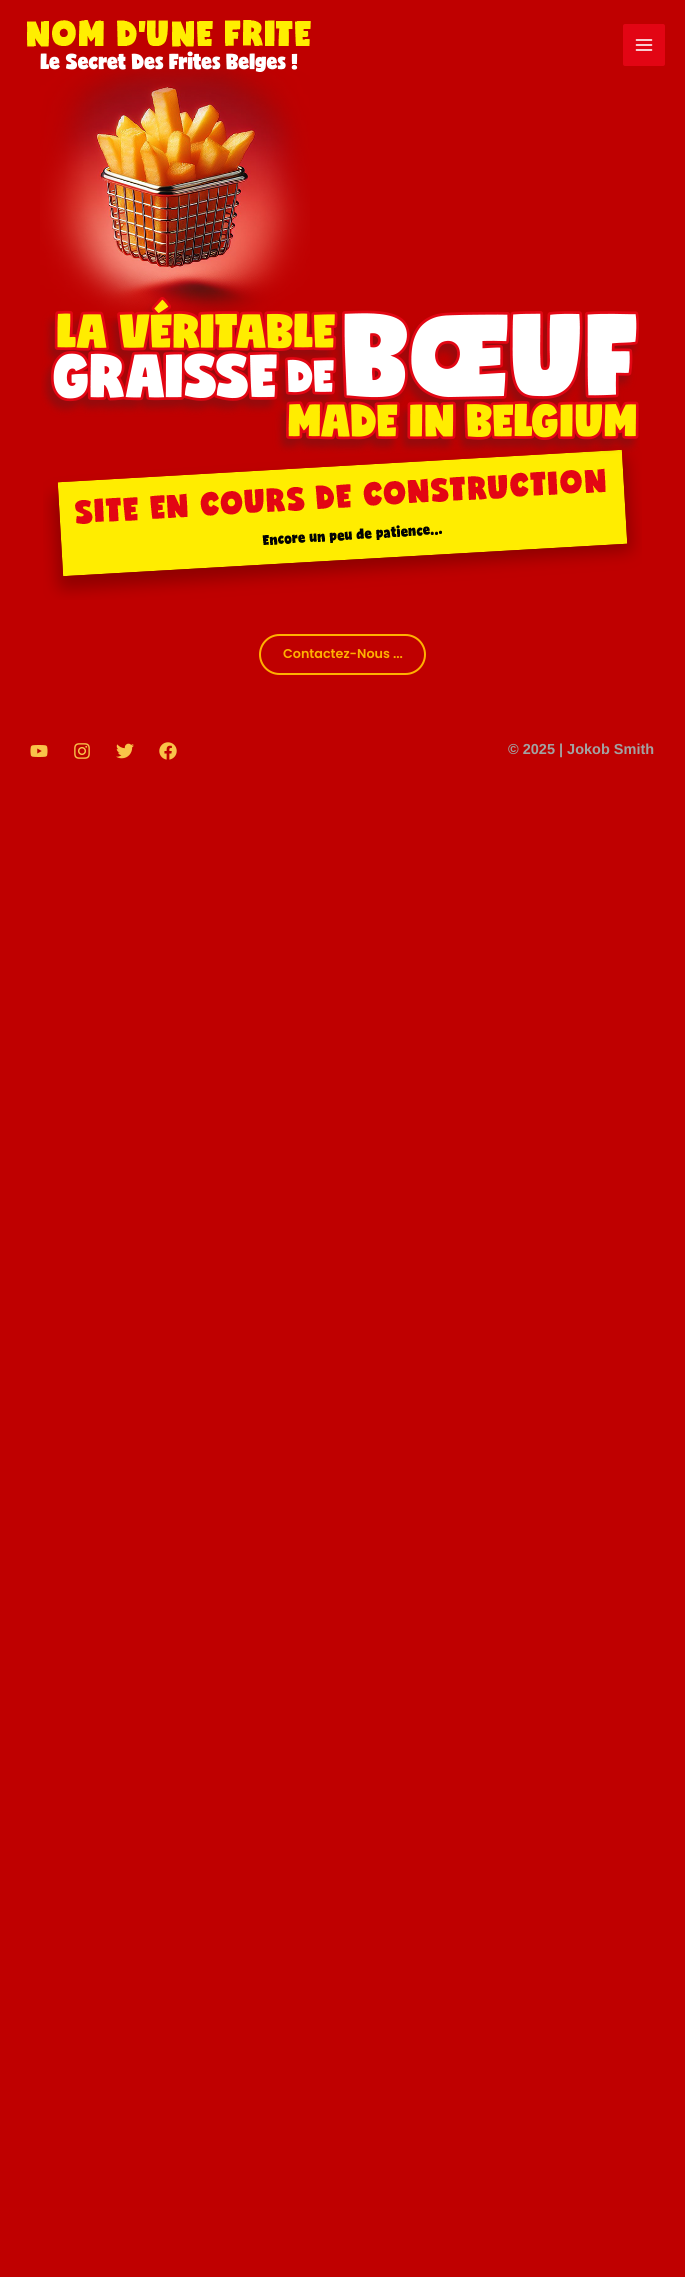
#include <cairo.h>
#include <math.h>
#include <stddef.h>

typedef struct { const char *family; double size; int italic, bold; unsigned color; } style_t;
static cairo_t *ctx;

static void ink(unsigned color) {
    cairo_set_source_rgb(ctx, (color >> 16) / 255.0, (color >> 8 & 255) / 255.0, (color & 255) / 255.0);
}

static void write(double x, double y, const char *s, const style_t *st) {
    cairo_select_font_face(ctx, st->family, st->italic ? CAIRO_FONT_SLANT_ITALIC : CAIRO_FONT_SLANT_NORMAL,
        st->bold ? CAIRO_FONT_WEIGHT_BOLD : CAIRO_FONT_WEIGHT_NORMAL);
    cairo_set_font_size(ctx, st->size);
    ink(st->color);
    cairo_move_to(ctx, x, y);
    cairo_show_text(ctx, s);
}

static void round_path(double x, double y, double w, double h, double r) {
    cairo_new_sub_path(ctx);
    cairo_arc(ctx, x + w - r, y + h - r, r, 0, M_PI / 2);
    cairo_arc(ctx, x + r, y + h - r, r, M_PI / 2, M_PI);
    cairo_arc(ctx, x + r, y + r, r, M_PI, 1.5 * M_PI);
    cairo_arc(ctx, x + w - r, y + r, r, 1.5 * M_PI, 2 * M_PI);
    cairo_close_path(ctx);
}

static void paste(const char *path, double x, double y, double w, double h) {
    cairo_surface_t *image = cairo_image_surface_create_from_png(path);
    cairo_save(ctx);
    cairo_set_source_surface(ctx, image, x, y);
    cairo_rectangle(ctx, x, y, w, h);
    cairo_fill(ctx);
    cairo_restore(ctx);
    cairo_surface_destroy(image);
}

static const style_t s1 = {"Poppins SemiBold", 12.75, 0, 0, 0xffb100};
static const style_t s2 = {"Liberation Sans", 14.5, 0, 1, 0xa2a2a2};

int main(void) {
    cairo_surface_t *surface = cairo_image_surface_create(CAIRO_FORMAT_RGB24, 685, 2277);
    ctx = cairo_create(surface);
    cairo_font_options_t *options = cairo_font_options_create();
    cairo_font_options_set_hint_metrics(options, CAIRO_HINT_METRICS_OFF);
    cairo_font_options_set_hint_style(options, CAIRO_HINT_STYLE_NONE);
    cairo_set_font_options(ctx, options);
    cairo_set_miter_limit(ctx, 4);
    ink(0xbf0000);
    cairo_paint(ctx);
    paste("pic3.png", 40, 56, 270, 262);
    paste("pic1.png", 27, 20, 284, 52);
    ink(0xe20514);
    round_path(623, 24, 42, 42, 2);
    cairo_fill(ctx);
    paste("pic2.png", 635, 39, 18, 12);
    paste("pic5.png", 43, 446, 599, 154);
    paste("pic4.png", 41, 297, 599, 157);
    round_path(260, 635, 165, 39, 19.5);
    ink(0xffb100);
    cairo_stroke(ctx);
    write(283, 658, "Contactez-Nous ...", &s1);
    paste("pic6.png", 30, 745, 18, 12);
    paste("pic7.png", 74, 743, 16, 16);
    paste("pic8.png", 116, 743, 18, 16);
    paste("pic9.png", 159, 742, 18, 18);
    write(508, 754, "© 2025 | Jokob Smith", &s2);
    cairo_surface_write_to_png(surface, "screenshot.png");
    cairo_font_options_destroy(options);
    cairo_destroy(ctx);
    cairo_surface_destroy(surface);
    return 0;
}
